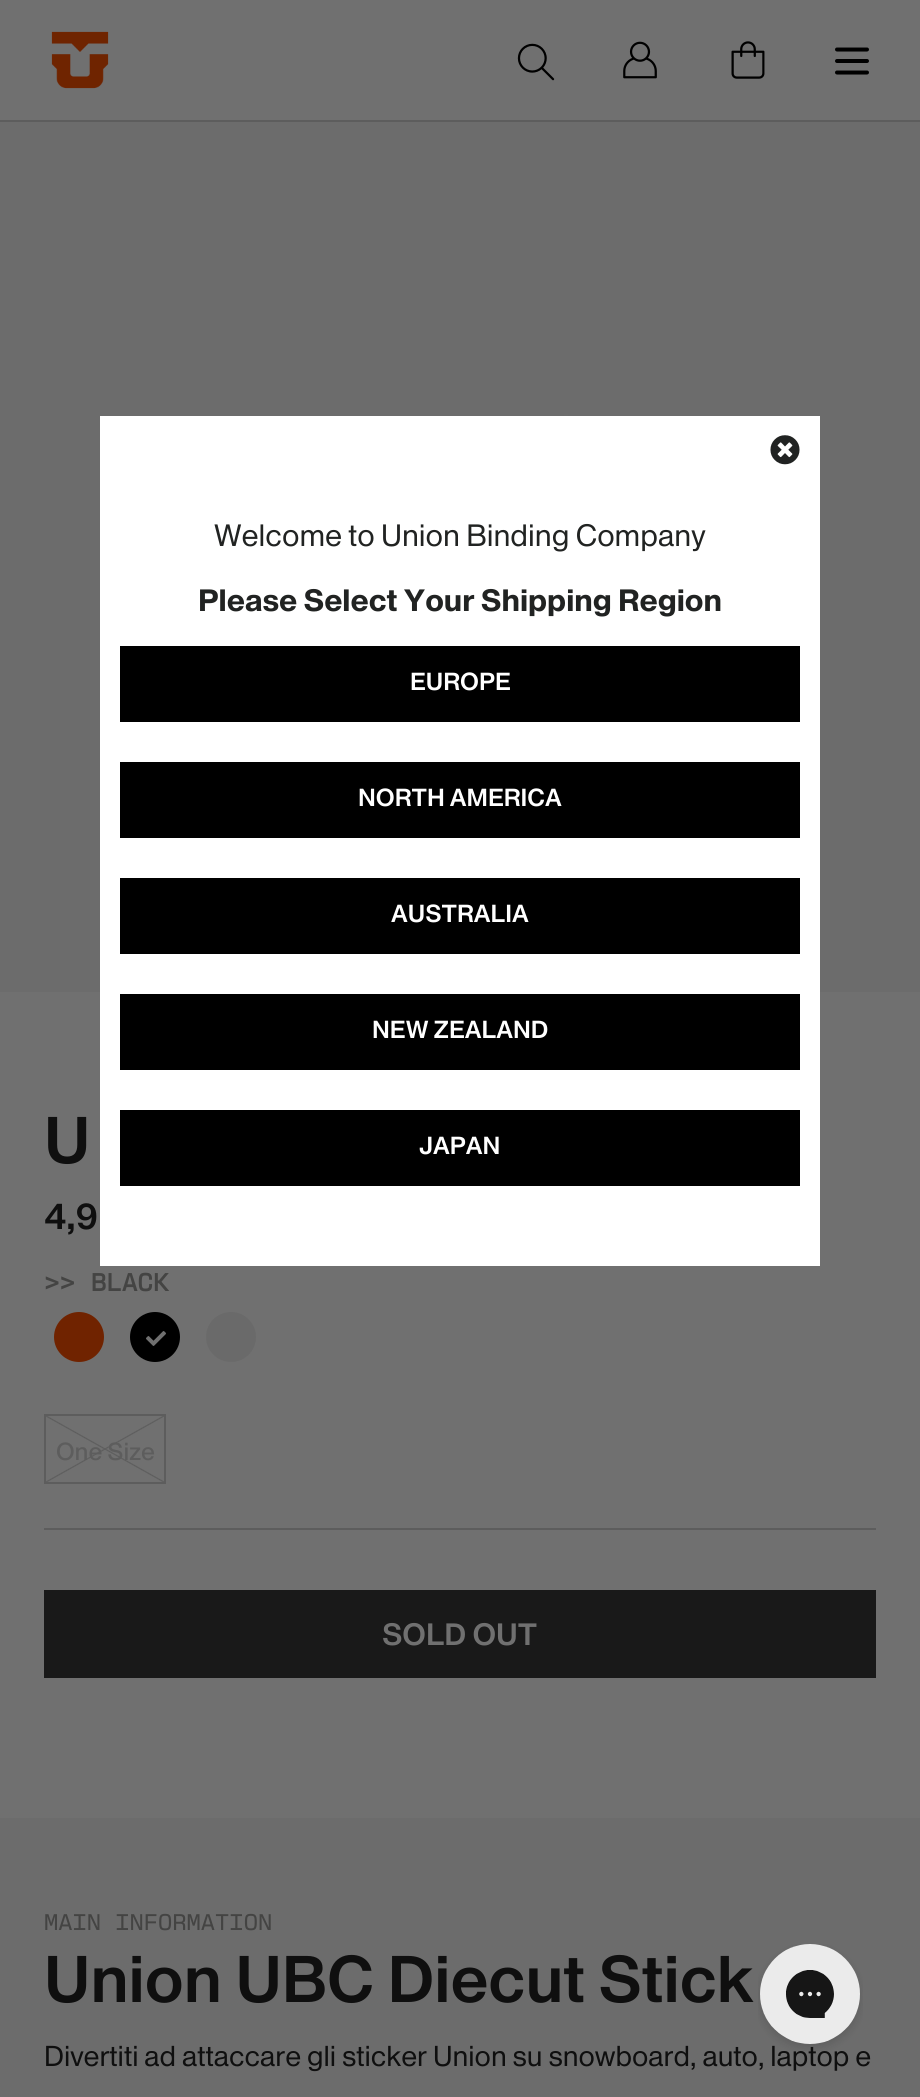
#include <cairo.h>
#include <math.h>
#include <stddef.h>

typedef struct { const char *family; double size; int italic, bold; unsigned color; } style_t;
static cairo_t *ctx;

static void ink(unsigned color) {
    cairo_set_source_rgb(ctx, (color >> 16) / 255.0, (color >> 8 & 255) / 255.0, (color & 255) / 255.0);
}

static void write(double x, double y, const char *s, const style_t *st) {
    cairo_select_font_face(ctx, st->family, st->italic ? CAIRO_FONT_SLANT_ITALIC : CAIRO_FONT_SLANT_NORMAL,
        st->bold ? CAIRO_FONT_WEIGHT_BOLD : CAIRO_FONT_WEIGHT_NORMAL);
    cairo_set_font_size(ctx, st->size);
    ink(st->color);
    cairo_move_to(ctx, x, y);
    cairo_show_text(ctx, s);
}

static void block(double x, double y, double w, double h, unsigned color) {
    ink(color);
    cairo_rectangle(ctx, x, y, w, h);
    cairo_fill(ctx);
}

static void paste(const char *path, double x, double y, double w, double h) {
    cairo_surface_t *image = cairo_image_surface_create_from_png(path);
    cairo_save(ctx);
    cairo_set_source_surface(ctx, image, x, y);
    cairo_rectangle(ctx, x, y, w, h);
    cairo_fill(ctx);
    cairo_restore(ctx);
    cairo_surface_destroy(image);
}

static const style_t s1 = {"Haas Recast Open", 30, 0, 0, 0x212322};
static const style_t s2 = {"Haas Recast Open", 30, 0, 1, 0x212322};
static const style_t s3 = {"Haas Recast Open SemiBold", 24, 0, 0, 0xffffff};
static const style_t s4 = {"Haas Recast Open SemiBold", 64, 0, 0, 0x0f0f0f};
static const style_t s5 = {"Haas Recast Open SemiBold", 36, 0, 0, 0x0f0f0f};
static const style_t s6 = {"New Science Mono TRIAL", 24, 0, 1, 0x444443};
static const style_t s7 = {"Haas Recast Open Medium", 24, 0, 0, 0x5d5d5d};
static const style_t s8 = {"Haas Recast Open SemiBold", 30, 0, 0, 0x707070};
static const style_t s9 = {"New Science Mono TRIAL Medium", 22, 0, 0, 0x444443};
static const style_t s10 = {"Haas Recast Open", 28, 0, 0, 0x0f0f0f};

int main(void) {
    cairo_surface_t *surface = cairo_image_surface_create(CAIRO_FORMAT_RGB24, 920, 2097);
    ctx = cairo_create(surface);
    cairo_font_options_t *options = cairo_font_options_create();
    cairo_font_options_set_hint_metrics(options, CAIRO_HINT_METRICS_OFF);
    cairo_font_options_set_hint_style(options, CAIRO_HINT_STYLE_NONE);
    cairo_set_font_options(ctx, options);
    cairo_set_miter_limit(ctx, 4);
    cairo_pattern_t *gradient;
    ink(0x707070);
    cairo_paint(ctx);
    block(0, 120, 920, 2, 0x5d5d5d);
    paste("pic1.png", 51, 31, 58, 58);
    paste("pic2.png", 517, 43, 38, 38);
    paste("pic3.png", 623, 41, 34, 38);
    paste("pic4.png", 731, 41, 34, 38);
    paste("pic5.png", 835, 47, 34, 28);
    paste("pic7.png", 0, 122, 920, 870);
    block(100, 416, 720, 850, 0xffffff);
    paste("pic6.png", 770, 435, 30, 30);
    write(214, 546, "Welcome to Union Binding Company", &s1);
    write(198, 611, "Please Select Your Shipping Region", &s2);
    block(120, 646, 680, 76, 0x000000);
    write(410, 690, "EUROPE", &s3);
    block(120, 762, 680, 76, 0x000000);
    write(358, 806, "NORTH AMERICA", &s3);
    block(120, 878, 680, 76, 0x000000);
    write(391, 922, "AUSTRALIA", &s3);
    block(120, 994, 680, 76, 0x000000);
    write(372, 1038, "NEW ZEALAND", &s3);
    block(120, 1110, 680, 76, 0x000000);
    write(419, 1154, "JAPAN", &s3);
    write(44, 1163, "U", &s4);
    write(44, 1229, "4,9", &s5);
    write(44, 1291, ">> BLACK", &s6);
    ink(0x702300);
    cairo_new_path(ctx);
    cairo_arc(ctx, 79, 1337, 25, 0, 2 * M_PI);
    cairo_fill(ctx);
    ink(0x000000);
    cairo_arc(ctx, 155, 1337, 25, 0, 2 * M_PI);
    cairo_fill(ctx);
    paste("pic8.png", 146, 1331, 20, 15);
    ink(0x6a6a6a);
    cairo_arc(ctx, 231, 1337, 25, 0, 2 * M_PI);
    cairo_fill(ctx);
    gradient = cairo_pattern_create_linear(77, 1499, 133, 1399);
    cairo_pattern_add_color_stop_rgba(gradient, 0, 0.439, 0.439, 0.439, 1);
    cairo_pattern_add_color_stop_rgba(gradient, 0.49, 0.439, 0.439, 0.439, 1);
    cairo_pattern_add_color_stop_rgba(gradient, 0.5, 0.365, 0.365, 0.365, 1);
    cairo_pattern_add_color_stop_rgba(gradient, 0.51, 0.439, 0.439, 0.439, 1);
    cairo_pattern_add_color_stop_rgba(gradient, 1, 0.439, 0.439, 0.439, 1);
    cairo_set_source(ctx, gradient);
    cairo_pattern_destroy(gradient);
    cairo_rectangle(ctx, 46, 1416, 118, 66);
    cairo_fill(ctx);
    gradient = cairo_pattern_create_linear(133, 1499, 77, 1399);
    cairo_pattern_add_color_stop_rgba(gradient, 0, 0, 0, 0, 0);
    cairo_pattern_add_color_stop_rgba(gradient, 0.49, 0.365, 0.365, 0.365, 0);
    cairo_pattern_add_color_stop_rgba(gradient, 0.5, 0.365, 0.365, 0.365, 1);
    cairo_pattern_add_color_stop_rgba(gradient, 0.51, 0.365, 0.365, 0.365, 0);
    cairo_pattern_add_color_stop_rgba(gradient, 1, 0, 0, 0, 0);
    cairo_set_source(ctx, gradient);
    cairo_pattern_destroy(gradient);
    cairo_rectangle(ctx, 46, 1416, 118, 66);
    cairo_fill(ctx);
    cairo_rectangle(ctx, 45, 1415, 120, 68);
    ink(0x5d5d5d);
    cairo_stroke(ctx);
    write(56, 1460, "One Size", &s7);
    block(44, 1528, 832, 2, 0x5d5d5d);
    block(44, 1590, 832, 88, 0x191919);
    write(382, 1645, "SOLD OUT", &s8);
    block(0, 1818, 920, 279, 0x6c6c6c);
    write(44, 1930, "MAIN INFORMATION", &s9);
    write(44, 2002, "Union UBC Diecut Stick", &s4);
    write(44, 2066, "Divertiti ad attaccare gli sticker Union su snowboard, auto, laptop e", &s10);
    paste("pic9.png", 758, 1944, 105, 107);
    cairo_surface_write_to_png(surface, "screenshot.png");
    cairo_font_options_destroy(options);
    cairo_destroy(ctx);
    cairo_surface_destroy(surface);
    return 0;
}
